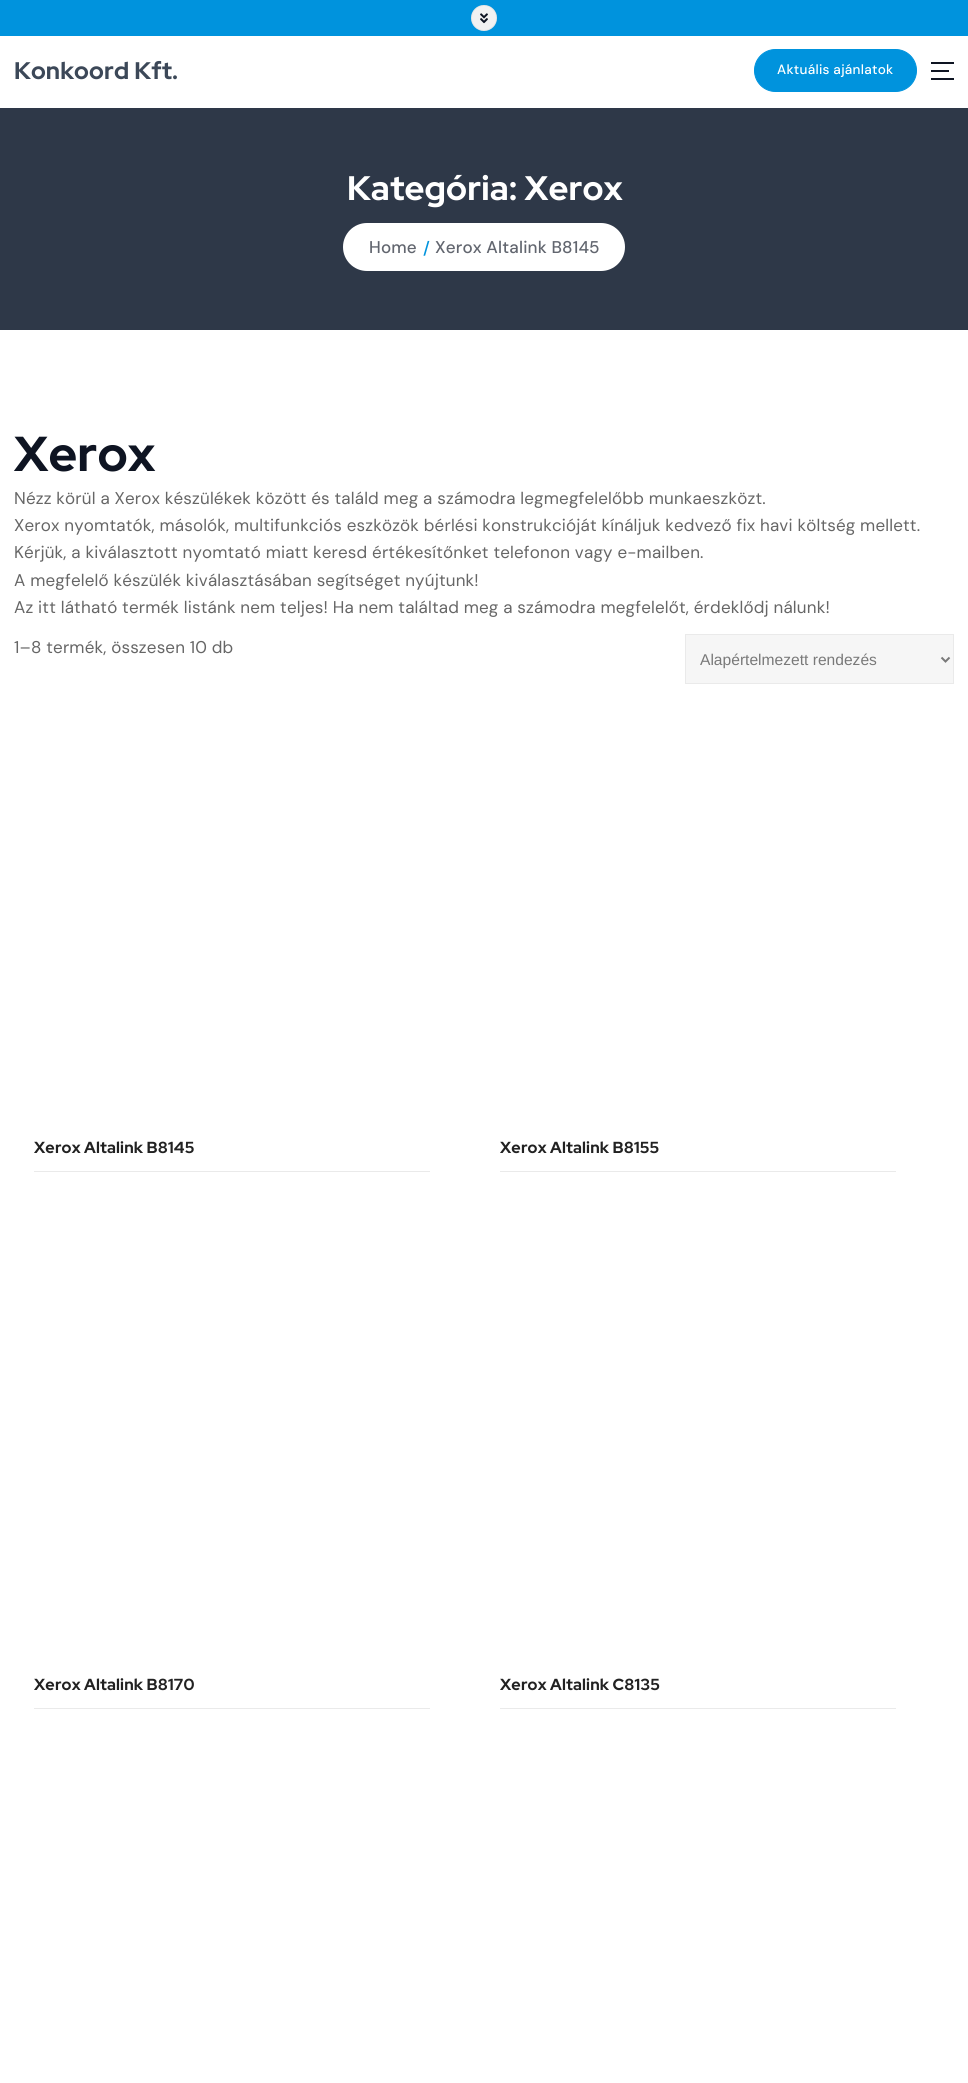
#include <cairo.h>
#include <math.h>
#include <stddef.h>

typedef struct { const char *family; double size; int italic, bold; unsigned color; } style_t;
static cairo_t *ctx;

static void ink(unsigned color) {
    cairo_set_source_rgb(ctx, (color >> 16) / 255.0, (color >> 8 & 255) / 255.0, (color & 255) / 255.0);
}

static void write(double x, double y, const char *s, const style_t *st) {
    cairo_select_font_face(ctx, st->family, st->italic ? CAIRO_FONT_SLANT_ITALIC : CAIRO_FONT_SLANT_NORMAL,
        st->bold ? CAIRO_FONT_WEIGHT_BOLD : CAIRO_FONT_WEIGHT_NORMAL);
    cairo_set_font_size(ctx, st->size);
    ink(st->color);
    cairo_move_to(ctx, x, y);
    cairo_show_text(ctx, s);
}

static void write_spaced(double x, double y, const char *s, double letter, double word) {
    cairo_move_to(ctx, x, y);
    while (*s) {
        char ch[5] = {0};
        int n = 0;
        do ch[n++] = *s++; while ((*s & 0xC0) == 0x80);
        cairo_show_text(ctx, ch);
        cairo_rel_move_to(ctx, letter + word * (*ch == ' '), 0);
    }
}

static void block(double x, double y, double w, double h, unsigned color) {
    ink(color);
    cairo_rectangle(ctx, x, y, w, h);
    cairo_fill(ctx);
}

static void round_path(double x, double y, double w, double h, double r) {
    cairo_new_sub_path(ctx);
    cairo_arc(ctx, x + w - r, y + h - r, r, 0, M_PI / 2);
    cairo_arc(ctx, x + r, y + h - r, r, M_PI / 2, M_PI);
    cairo_arc(ctx, x + r, y + r, r, M_PI, 1.5 * M_PI);
    cairo_arc(ctx, x + w - r, y + r, r, 1.5 * M_PI, 2 * M_PI);
    cairo_close_path(ctx);
}

static void paste(const char *path, double x, double y, double w, double h) {
    cairo_surface_t *image = cairo_image_surface_create_from_png(path);
    cairo_save(ctx);
    cairo_set_source_surface(ctx, image, x, y);
    cairo_rectangle(ctx, x, y, w, h);
    cairo_fill(ctx);
    cairo_restore(ctx);
    cairo_surface_destroy(image);
}

static const style_t s1 = {"Liberation Sans", 15.6, 0, 0, 0x797979};

int main(void) {
    cairo_surface_t *surface = cairo_image_surface_create(CAIRO_FORMAT_RGB24, 968, 2083);
    ctx = cairo_create(surface);
    cairo_font_options_t *options = cairo_font_options_create();
    cairo_font_options_set_hint_metrics(options, CAIRO_HINT_METRICS_OFF);
    cairo_font_options_set_hint_style(options, CAIRO_HINT_STYLE_NONE);
    cairo_set_font_options(ctx, options);
    cairo_set_miter_limit(ctx, 4);
    ink(0xffffff);
    cairo_paint(ctx);
    block(0, 0, 968, 36, 0x0093dd);
    ink(0xf2f2f2);
    cairo_arc(ctx, 484, 18, 13, 0, 2 * M_PI);
    cairo_fill(ctx);
    cairo_arc(ctx, 484, 18, 12.5, 0, 2 * M_PI);
    cairo_set_source_rgba(ctx, 0.741, 0.741, 0.741, 0.2);
    cairo_set_line_width(ctx, 1);
    cairo_stroke(ctx);
    paste("pic1.png", 480, 13, 8, 11);
    cairo_select_font_face(ctx, "Red Hat Display", CAIRO_FONT_SLANT_NORMAL, CAIRO_FONT_WEIGHT_BOLD);
    cairo_set_font_size(ctx, 24);
    ink(0x3c4858);
    write_spaced(14, 79, "Konkoord Kft.", 0.17, 0);
    ink(0x0093dd);
    round_path(754.5, 49.5, 162, 42, 21);
    cairo_fill_preserve(ctx);
    cairo_stroke(ctx);
    cairo_select_font_face(ctx, "DM Sans Medium", CAIRO_FONT_SLANT_NORMAL, CAIRO_FONT_WEIGHT_NORMAL);
    cairo_set_font_size(ctx, 13.5);
    ink(0xffffff);
    write_spaced(777, 74, "Aktuális ajánlatok", 0.25, 0);
    block(931, 62, 23, 2, 0x0e1422);
    block(931, 70, 18, 2, 0x0e1422);
    block(931, 78, 23, 2, 0x0e1422);
    block(0, 108, 968, 222, 0x2e3848);
    cairo_select_font_face(ctx, "Red Hat Display", CAIRO_FONT_SLANT_NORMAL, CAIRO_FONT_WEIGHT_BOLD);
    cairo_set_font_size(ctx, 34);
    ink(0xffffff);
    write_spaced(347, 200, "Kategória: Xerox", 0.17, 0);
    round_path(343, 223, 282, 48, 24);
    cairo_fill(ctx);
    cairo_select_font_face(ctx, "DM Sans Medium", CAIRO_FONT_SLANT_NORMAL, CAIRO_FONT_WEIGHT_NORMAL);
    cairo_set_font_size(ctx, 17);
    ink(0x62666f);
    write_spaced(369, 253, "Home", 0.17, 0);
    ink(0x0093dd);
    write_spaced(423, 254, "/", 0.17, 0);
    ink(0x62666f);
    write_spaced(435, 253, "Xerox Altalink B8145", 0.17, 0);
    cairo_select_font_face(ctx, "Red Hat Display", CAIRO_FONT_SLANT_NORMAL, CAIRO_FONT_WEIGHT_BOLD);
    cairo_set_font_size(ctx, 49);
    ink(0x0e1422);
    write_spaced(14, 471, "Xerox", 0.17, 0);
    cairo_select_font_face(ctx, "DM Sans", CAIRO_FONT_SLANT_NORMAL, CAIRO_FONT_WEIGHT_NORMAL);
    cairo_set_font_size(ctx, 17);
    ink(0x666666);
    write_spaced(14, 504, "Nézz körül a Xerox készülékek között és találd meg a számodra legmegfelelőbb munkaeszközt.", 0.17, 0);
    write_spaced(14, 531, "Xerox nyomtatók, másolók, multifunkciós eszközök bérlési konstrukcióját kínáljuk kedvező fix havi költség mellett.", 0.17, 0);
    write_spaced(14, 558, "Kérjük, a kiválasztott nyomtató miatt keresd értékesítőnket telefonon vagy e-mailben.", 0.17, 0);
    write_spaced(14, 586, "A megfelelő készülék kiválasztásában segítséget nyújtunk!", 0.17, 0);
    write_spaced(14, 613, "Az itt látható termék listánk nem teljes! Ha nem találtad meg a számodra megfelelőt, érdeklődj nálunk!", 0.17, 0);
    write_spaced(14, 653, "1–8 termék, összesen 10 db", 0.17, 0);
    ink(0xf6f6f6);
    cairo_rectangle(ctx, 685.5, 634.5, 268, 49);
    cairo_fill_preserve(ctx);
    ink(0xeaeaea);
    cairo_stroke(ctx);
    cairo_new_path(ctx);
    cairo_move_to(ctx, 941.5, 657.5);
    cairo_line_to(ctx, 945.5, 661.5);
    cairo_line_to(ctx, 949.5, 657.5);
    ink(0x797979);
    cairo_set_line_width(ctx, 2);
    cairo_stroke(ctx);
    write(700, 665, "Alapértelmezett rendezés", &s1);
    block(34, 1171, 396, 1, 0xeaeaea);
    cairo_select_font_face(ctx, "Red Hat Display", CAIRO_FONT_SLANT_NORMAL, CAIRO_FONT_WEIGHT_BOLD);
    cairo_set_font_size(ctx, 16);
    ink(0x222222);
    write_spaced(34, 1153, "Xerox Altalink B8145", 0.17, 0);
    block(500, 1171, 396, 1, 0xeaeaea);
    ink(0x222222);
    write_spaced(500, 1153, "Xerox Altalink B8155", 0.17, 0);
    block(34, 1708, 396, 1, 0xeaeaea);
    ink(0x222222);
    write_spaced(34, 1690, "Xerox Altalink B8170", 0.17, 0);
    block(500, 1708, 396, 1, 0xeaeaea);
    ink(0x222222);
    write_spaced(500, 1690, "Xerox Altalink C8135", 0.17, 0);
    cairo_surface_write_to_png(surface, "screenshot.png");
    cairo_font_options_destroy(options);
    cairo_destroy(ctx);
    cairo_surface_destroy(surface);
    return 0;
}
